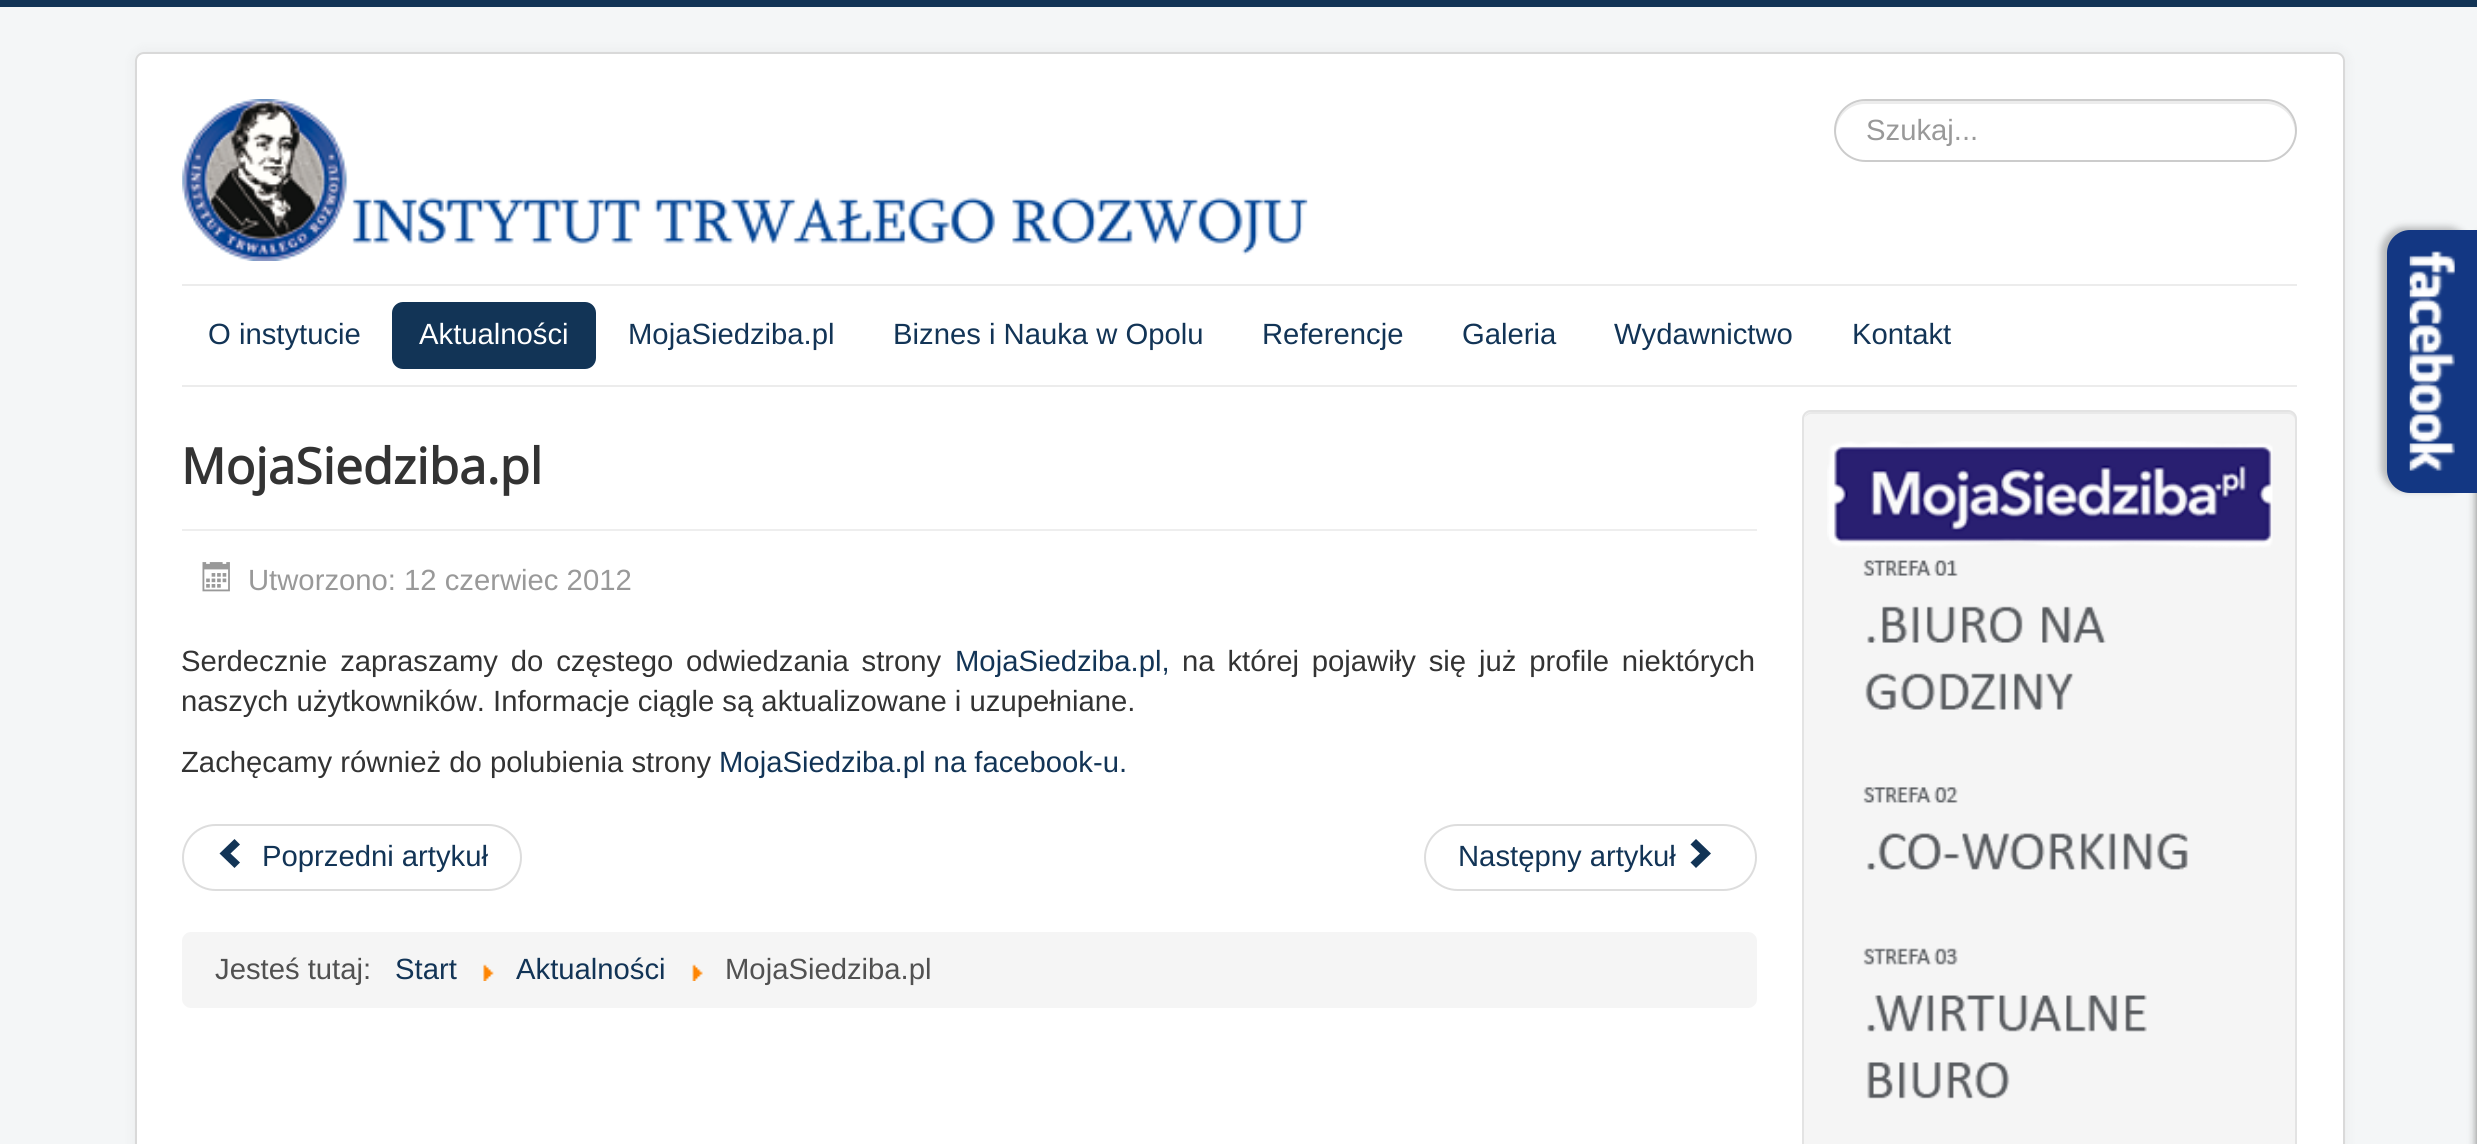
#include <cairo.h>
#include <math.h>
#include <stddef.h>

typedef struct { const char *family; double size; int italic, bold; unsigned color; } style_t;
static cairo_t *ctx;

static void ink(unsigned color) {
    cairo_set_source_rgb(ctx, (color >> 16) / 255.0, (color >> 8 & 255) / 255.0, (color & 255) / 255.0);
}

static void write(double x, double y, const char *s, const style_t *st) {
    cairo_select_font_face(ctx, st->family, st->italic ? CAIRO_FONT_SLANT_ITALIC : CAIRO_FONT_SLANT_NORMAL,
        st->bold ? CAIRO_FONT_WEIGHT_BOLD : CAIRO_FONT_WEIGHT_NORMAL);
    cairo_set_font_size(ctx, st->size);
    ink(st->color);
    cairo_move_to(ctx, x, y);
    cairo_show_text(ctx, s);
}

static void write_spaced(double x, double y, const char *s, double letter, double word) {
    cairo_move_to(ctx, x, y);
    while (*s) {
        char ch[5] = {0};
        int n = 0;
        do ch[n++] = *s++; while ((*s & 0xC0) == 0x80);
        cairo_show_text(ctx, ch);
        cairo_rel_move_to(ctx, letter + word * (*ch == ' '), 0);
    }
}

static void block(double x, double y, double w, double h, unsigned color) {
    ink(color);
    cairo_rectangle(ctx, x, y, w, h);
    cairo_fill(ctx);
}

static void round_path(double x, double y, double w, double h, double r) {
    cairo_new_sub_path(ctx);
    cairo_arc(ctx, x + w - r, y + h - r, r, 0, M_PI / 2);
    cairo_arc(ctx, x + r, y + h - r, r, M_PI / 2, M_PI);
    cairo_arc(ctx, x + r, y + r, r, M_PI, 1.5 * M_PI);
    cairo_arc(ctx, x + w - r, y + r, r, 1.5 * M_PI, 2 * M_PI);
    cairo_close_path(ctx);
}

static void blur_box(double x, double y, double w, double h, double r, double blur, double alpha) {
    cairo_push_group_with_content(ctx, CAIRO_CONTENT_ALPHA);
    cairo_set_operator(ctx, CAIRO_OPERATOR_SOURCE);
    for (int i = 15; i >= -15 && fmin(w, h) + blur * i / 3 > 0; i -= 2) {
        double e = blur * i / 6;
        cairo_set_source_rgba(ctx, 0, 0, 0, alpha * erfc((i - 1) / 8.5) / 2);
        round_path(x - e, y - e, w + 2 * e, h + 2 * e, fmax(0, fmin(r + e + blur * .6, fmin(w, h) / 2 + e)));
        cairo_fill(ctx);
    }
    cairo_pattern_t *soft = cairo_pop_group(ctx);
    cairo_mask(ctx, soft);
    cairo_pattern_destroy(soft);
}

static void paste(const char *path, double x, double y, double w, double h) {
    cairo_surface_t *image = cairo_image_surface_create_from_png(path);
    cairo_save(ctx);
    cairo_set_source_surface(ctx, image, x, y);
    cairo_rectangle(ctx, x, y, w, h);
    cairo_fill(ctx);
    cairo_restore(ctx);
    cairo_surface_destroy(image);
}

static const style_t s1 = {"Liberation Sans", 29.25, 0, 0, 0x999999};
static const style_t s2 = {"Liberation Sans", 29.25, 0, 0, 0x123456};
static const style_t s3 = {"Liberation Sans", 29.25, 0, 0, 0xffffff};
static const style_t s4 = {"Open Sans", 49.5, 0, 1, 0x333333};
static const style_t s5 = {"Liberation Sans", 29.25, 0, 0, 0x333333};
static const style_t s6 = {"Liberation Sans", 29.25, 0, 0, 0x515151};

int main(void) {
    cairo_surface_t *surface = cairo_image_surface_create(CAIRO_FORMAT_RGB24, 2477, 1144);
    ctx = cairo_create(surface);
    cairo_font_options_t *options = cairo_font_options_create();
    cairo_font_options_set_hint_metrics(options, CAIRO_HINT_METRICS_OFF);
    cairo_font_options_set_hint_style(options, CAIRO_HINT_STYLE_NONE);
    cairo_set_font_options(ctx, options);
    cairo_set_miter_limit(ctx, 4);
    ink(0xf4f6f7);
    cairo_paint(ctx);
    block(0, 0, 2477, 7, 0x123456);
    ink(0x000000);
    blur_box(135, 52, 2210, 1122, 9, 7, 0.05);
    ink(0xffffff);
    round_path(135, 52, 2210, 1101, 9);
    cairo_fill(ctx);
    round_path(136, 53, 2208, 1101, 8);
    cairo_set_source_rgba(ctx, 0, 0, 0, 0.15);
    cairo_stroke(ctx);
    paste("pic1.png", 182, 99, 1126, 162);
    ink(0xececec);
    cairo_new_path(ctx);
    cairo_move_to(ctx, 1865, 104);
    cairo_line_to(ctx, 2266, 104);
    cairo_curve_to(ctx, 2282, 104, 2294, 116, 2295, 132);
    cairo_curve_to(ctx, 2296, 115, 2282, 101, 2266, 101);
    cairo_line_to(ctx, 1866, 101);
    cairo_curve_to(ctx, 1849, 101, 1835, 115, 1836, 132);
    cairo_curve_to(ctx, 1837, 116, 1849, 104, 1865, 104);
    cairo_close_path(ctx);
    cairo_fill(ctx);
    round_path(1835, 100, 461, 61, 30.5);
    ink(0xcccccc);
    cairo_stroke(ctx);
    write(1866, 140, "Szukaj...", &s1);
    block(182, 284, 2115, 2, 0xececec);
    block(182, 385, 2115, 2, 0xececec);
    write(208, 344, "O instytucie", &s2);
    round_path(392, 302, 204, 67, 11);
    cairo_fill(ctx);
    write(419, 344, "Aktualności", &s3);
    write(628, 344, "MojaSiedziba.pl", &s2);
    write(893, 344, "Biznes i Nauka w Opolu", &s2);
    write(1262, 344, "Referencje", &s2);
    write(1462, 344, "Galeria", &s2);
    write(1614, 344, "Wydawnictwo", &s2);
    write(1852, 344, "Kontakt", &s2);
    block(182, 529, 1575, 2, 0xeeeeee);
    write(181, 484, "MojaSiedziba.pl", &s4);
    paste("pic2.png", 202, 562, 28, 30);
    write(248, 590, "Utworzono: 12 czerwiec 2012", &s1);
    ink(0x333333);
    write_spaced(181, 671, "Serdecznie zapraszamy do częstego odwiedzania strony", 0, 4.75);
    write(955, 671, "MojaSiedziba.pl,", &s2);
    ink(0x333333);
    write_spaced(1182, 671, "na której pojawiły się już profile niektórych", 0, 4.75);
    write(181, 711, "naszych użytkowników. Informacje ciągle są aktualizowane i uzupełniane.", &s5);
    write(181, 772, "Zachęcamy również do polubienia strony", &s5);
    write(719, 772, "MojaSiedziba.pl na facebook-u.", &s2);
    round_path(183, 825, 338, 65, 32.5);
    ink(0xdddddd);
    cairo_stroke(ctx);
    ink(0x123456);
    cairo_new_path(ctx);
    cairo_move_to(ctx, 234.5, 868);
    cairo_line_to(ctx, 219.5, 853.5);
    cairo_line_to(ctx, 234.5, 839);
    cairo_line_to(ctx, 240, 844.5);
    cairo_line_to(ctx, 230.5, 853.5);
    cairo_line_to(ctx, 240, 862.5);
    cairo_close_path(ctx);
    cairo_fill(ctx);
    write(262, 866, "Poprzedni artykuł", &s2);
    round_path(1425, 825, 331, 65, 32.5);
    ink(0xdddddd);
    cairo_stroke(ctx);
    write(1458, 866, "Następny artykuł", &s2);
    cairo_new_path(ctx);
    cairo_move_to(ctx, 1696, 839);
    cairo_line_to(ctx, 1711, 853.5);
    cairo_line_to(ctx, 1696, 868);
    cairo_line_to(ctx, 1690.5, 862.5);
    cairo_line_to(ctx, 1700, 853.5);
    cairo_line_to(ctx, 1690.5, 844.5);
    cairo_close_path(ctx);
    cairo_fill(ctx);
    ink(0xf5f5f5);
    round_path(182, 932, 1575, 76, 9);
    cairo_fill(ctx);
    write(215, 979, "Jesteś tutaj:", &s6);
    write(395, 979, "Start", &s2);
    paste("pic3.png", 483, 964, 11, 17);
    write(516, 979, "Aktualności", &s2);
    paste("pic4.png", 692, 964, 11, 17);
    write(725, 979, "MojaSiedziba.pl", &s6);
    ink(0xf5f5f5);
    round_path(1802, 410, 495, 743, 9);
    cairo_fill(ctx);
    ink(0xe9e9e9);
    cairo_new_path(ctx);
    cairo_move_to(ctx, 1811, 414);
    cairo_line_to(ctx, 2288, 414);
    cairo_curve_to(ctx, 2292, 414, 2295, 417, 2295, 421);
    cairo_line_to(ctx, 2295, 419);
    cairo_curve_to(ctx, 2295, 415, 2292, 412, 2288, 412);
    cairo_line_to(ctx, 1812, 412);
    cairo_curve_to(ctx, 1809, 412, 1806, 414, 1805, 417);
    cairo_curve_to(ctx, 1807, 415, 1809, 414, 1811, 414);
    cairo_close_path(ctx);
    cairo_fill(ctx);
    round_path(1803, 411, 493, 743, 8);
    ink(0xe3e3e3);
    cairo_stroke(ctx);
    paste("pic5.png", 1827, 441, 446, 658);
    ink(0x000000);
    blur_box(2477, 230, 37, 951, 23, 4.5, 0.5);
    blur_box(2381, 227, 90, 264, 23, 3.5, 0.25);
    ink(0x133783);
    cairo_new_path(ctx);
    cairo_move_to(ctx, 2410, 230);
    cairo_line_to(ctx, 2477, 230);
    cairo_line_to(ctx, 2477, 493);
    cairo_line_to(ctx, 2410, 493);
    cairo_curve_to(ctx, 2397.5, 493, 2387, 482.5, 2387, 470);
    cairo_line_to(ctx, 2387, 253);
    cairo_curve_to(ctx, 2387, 240.5, 2397.5, 230, 2410, 230);
    cairo_close_path(ctx);
    cairo_fill(ctx);
    paste("pic6.png", 2409, 251, 46, 220);
    cairo_surface_write_to_png(surface, "screenshot.png");
    cairo_font_options_destroy(options);
    cairo_destroy(ctx);
    cairo_surface_destroy(surface);
    return 0;
}
